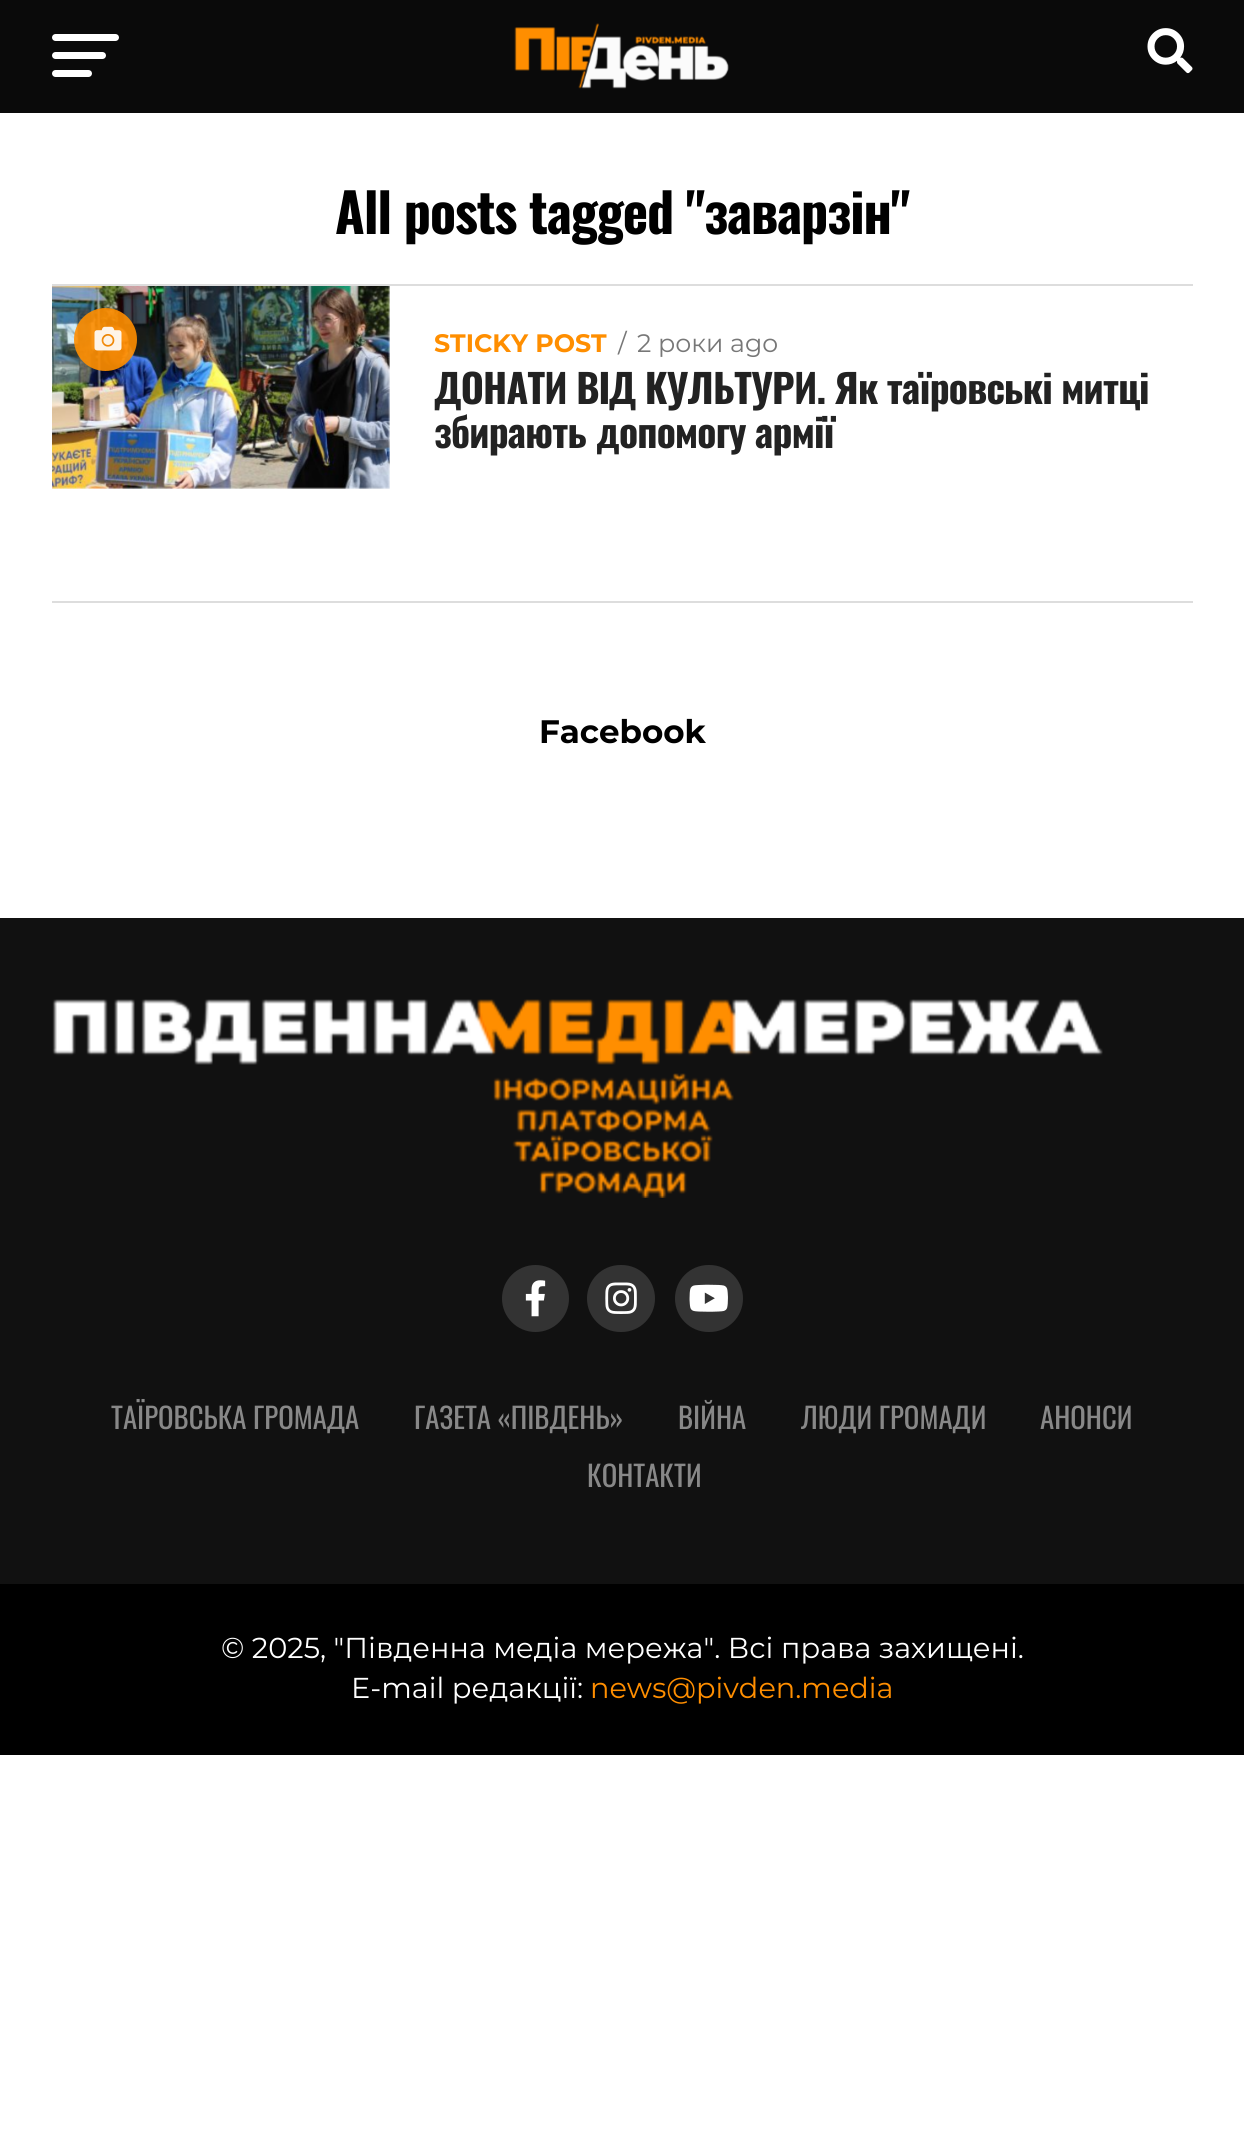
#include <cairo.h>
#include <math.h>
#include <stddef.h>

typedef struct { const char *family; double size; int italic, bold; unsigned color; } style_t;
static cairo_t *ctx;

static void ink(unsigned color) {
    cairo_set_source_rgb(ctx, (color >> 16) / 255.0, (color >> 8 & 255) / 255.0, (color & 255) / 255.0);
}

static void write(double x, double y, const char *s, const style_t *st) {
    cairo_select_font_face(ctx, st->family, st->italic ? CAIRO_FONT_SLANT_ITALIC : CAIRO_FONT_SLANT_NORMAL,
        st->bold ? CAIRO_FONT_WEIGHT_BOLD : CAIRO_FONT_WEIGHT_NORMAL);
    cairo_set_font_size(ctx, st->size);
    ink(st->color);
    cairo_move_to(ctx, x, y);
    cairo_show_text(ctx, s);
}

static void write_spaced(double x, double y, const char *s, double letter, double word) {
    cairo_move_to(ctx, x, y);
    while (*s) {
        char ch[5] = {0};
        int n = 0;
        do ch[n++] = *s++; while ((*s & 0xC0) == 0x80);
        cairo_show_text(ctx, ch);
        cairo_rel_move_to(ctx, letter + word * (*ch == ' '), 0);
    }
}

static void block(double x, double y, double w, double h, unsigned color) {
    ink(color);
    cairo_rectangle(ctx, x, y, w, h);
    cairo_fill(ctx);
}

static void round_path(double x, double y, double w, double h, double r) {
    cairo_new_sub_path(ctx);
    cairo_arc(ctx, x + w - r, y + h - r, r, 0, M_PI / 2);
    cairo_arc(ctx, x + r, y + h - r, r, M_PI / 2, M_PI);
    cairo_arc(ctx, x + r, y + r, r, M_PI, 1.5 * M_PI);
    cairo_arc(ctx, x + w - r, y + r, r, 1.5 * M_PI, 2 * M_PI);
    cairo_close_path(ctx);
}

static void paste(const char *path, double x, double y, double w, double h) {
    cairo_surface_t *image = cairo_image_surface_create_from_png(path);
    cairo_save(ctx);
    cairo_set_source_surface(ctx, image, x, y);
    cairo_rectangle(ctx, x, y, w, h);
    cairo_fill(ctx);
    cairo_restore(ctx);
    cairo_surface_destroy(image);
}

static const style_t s1 = {"Montserrat", 25.25, 0, 1, 0xff8e00};
static const style_t s2 = {"Montserrat", 25.25, 0, 0, 0x777777};
static const style_t s3 = {"Montserrat", 32.5, 0, 1, 0x000000};
static const style_t s4 = {"Oswald", 28.8, 0, 0, 0x888888};
static const style_t s5 = {"Montserrat", 28.8, 0, 0, 0xffffff};
static const style_t s6 = {"Montserrat", 28.8, 0, 0, 0xff8e00};

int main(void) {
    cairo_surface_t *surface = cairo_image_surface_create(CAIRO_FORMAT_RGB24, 1244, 2156);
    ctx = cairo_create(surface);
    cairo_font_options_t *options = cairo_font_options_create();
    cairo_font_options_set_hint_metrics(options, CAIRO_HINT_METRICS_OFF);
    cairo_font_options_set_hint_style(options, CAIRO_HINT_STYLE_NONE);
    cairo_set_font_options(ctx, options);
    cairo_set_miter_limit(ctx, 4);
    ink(0xffffff);
    cairo_paint(ctx);
    block(0, 0, 1244, 113, 0x0a0a0a);
    ink(0xffffff);
    round_path(52, 34, 67, 7, 3.5);
    cairo_fill(ctx);
    round_path(52, 52, 54, 7, 3.5);
    cairo_fill(ctx);
    round_path(52, 70, 40, 7, 3.5);
    cairo_fill(ctx);
    paste("pic1.png", 514, 23, 215, 66);
    paste("pic2.png", 1147, 28, 46, 46);
    cairo_select_font_face(ctx, "Oswald", CAIRO_FONT_SLANT_NORMAL, CAIRO_FONT_WEIGHT_BOLD);
    cairo_set_font_size(ctx, 54);
    ink(0x000000);
    write_spaced(335, 234, "All posts tagged \"заварзін\"", -1.1, 0);
    block(52, 284, 1141, 2, 0xdddddd);
    paste("pic3.png", 52, 286, 338, 203);
    cairo_set_source_rgba(ctx, 1, 0.557, 0, 0.9);
    cairo_arc(ctx, 105.5, 339.5, 31.5, 0, 2 * M_PI);
    cairo_fill(ctx);
    paste("pic4.png", 94, 326, 28, 25);
    write(434, 352, "STICKY POST", &s1);
    write(618, 352, "/", &s2);
    write(637, 352, "2 роки ago", &s2);
    cairo_select_font_face(ctx, "Oswald", CAIRO_FONT_SLANT_NORMAL, CAIRO_FONT_WEIGHT_BOLD);
    cairo_set_font_size(ctx, 39.6);
    ink(0x222222);
    write_spaced(434, 404, "ДОНАТИ ВІД КУЛЬТУРИ. Як таїровські митці", -0.8, 0);
    write_spaced(434, 448, "збирають допомогу армії", -0.8, 0);
    block(52, 601, 1141, 2, 0xdddddd);
    write(539, 743, "Facebook", &s3);
    block(0, 918, 1244, 666, 0x111111);
    paste("pic5.png", 52, 999, 1051, 199);
    ink(0x333333);
    cairo_arc(ctx, 535.5, 1298.5, 33.5, 0, 2 * M_PI);
    cairo_fill(ctx);
    paste("pic6.png", 525, 1280, 21, 37);
    round_path(587, 1265, 68, 67, 33.5);
    cairo_fill(ctx);
    paste("pic7.png", 605, 1282, 32, 32);
    round_path(675, 1265, 68, 67, 33.5);
    cairo_fill(ctx);
    paste("pic8.png", 689, 1284, 39, 28);
    write(111, 1429, "ТАЇРОВСЬКА ГРОМАДА", &s4);
    write(414, 1429, "ГАЗЕТА «ПІВДЕНЬ»", &s4);
    write(678, 1429, "ВІЙНА", &s4);
    write(801, 1429, "ЛЮДИ ГРОМАДИ", &s4);
    write(1040, 1429, "АНОНСИ", &s4);
    write(587, 1487, "КОНТАКТИ", &s4);
    block(0, 1584, 1244, 171, 0x000000);
    write(221, 1658, "© 2025, \"Південна медіа мережа\". Всі права захищені.", &s5);
    write(351, 1698, "E-mail редакції:", &s5);
    write(590, 1698, "news@pivden.media", &s6);
    cairo_surface_write_to_png(surface, "screenshot.png");
    cairo_font_options_destroy(options);
    cairo_destroy(ctx);
    cairo_surface_destroy(surface);
    return 0;
}
